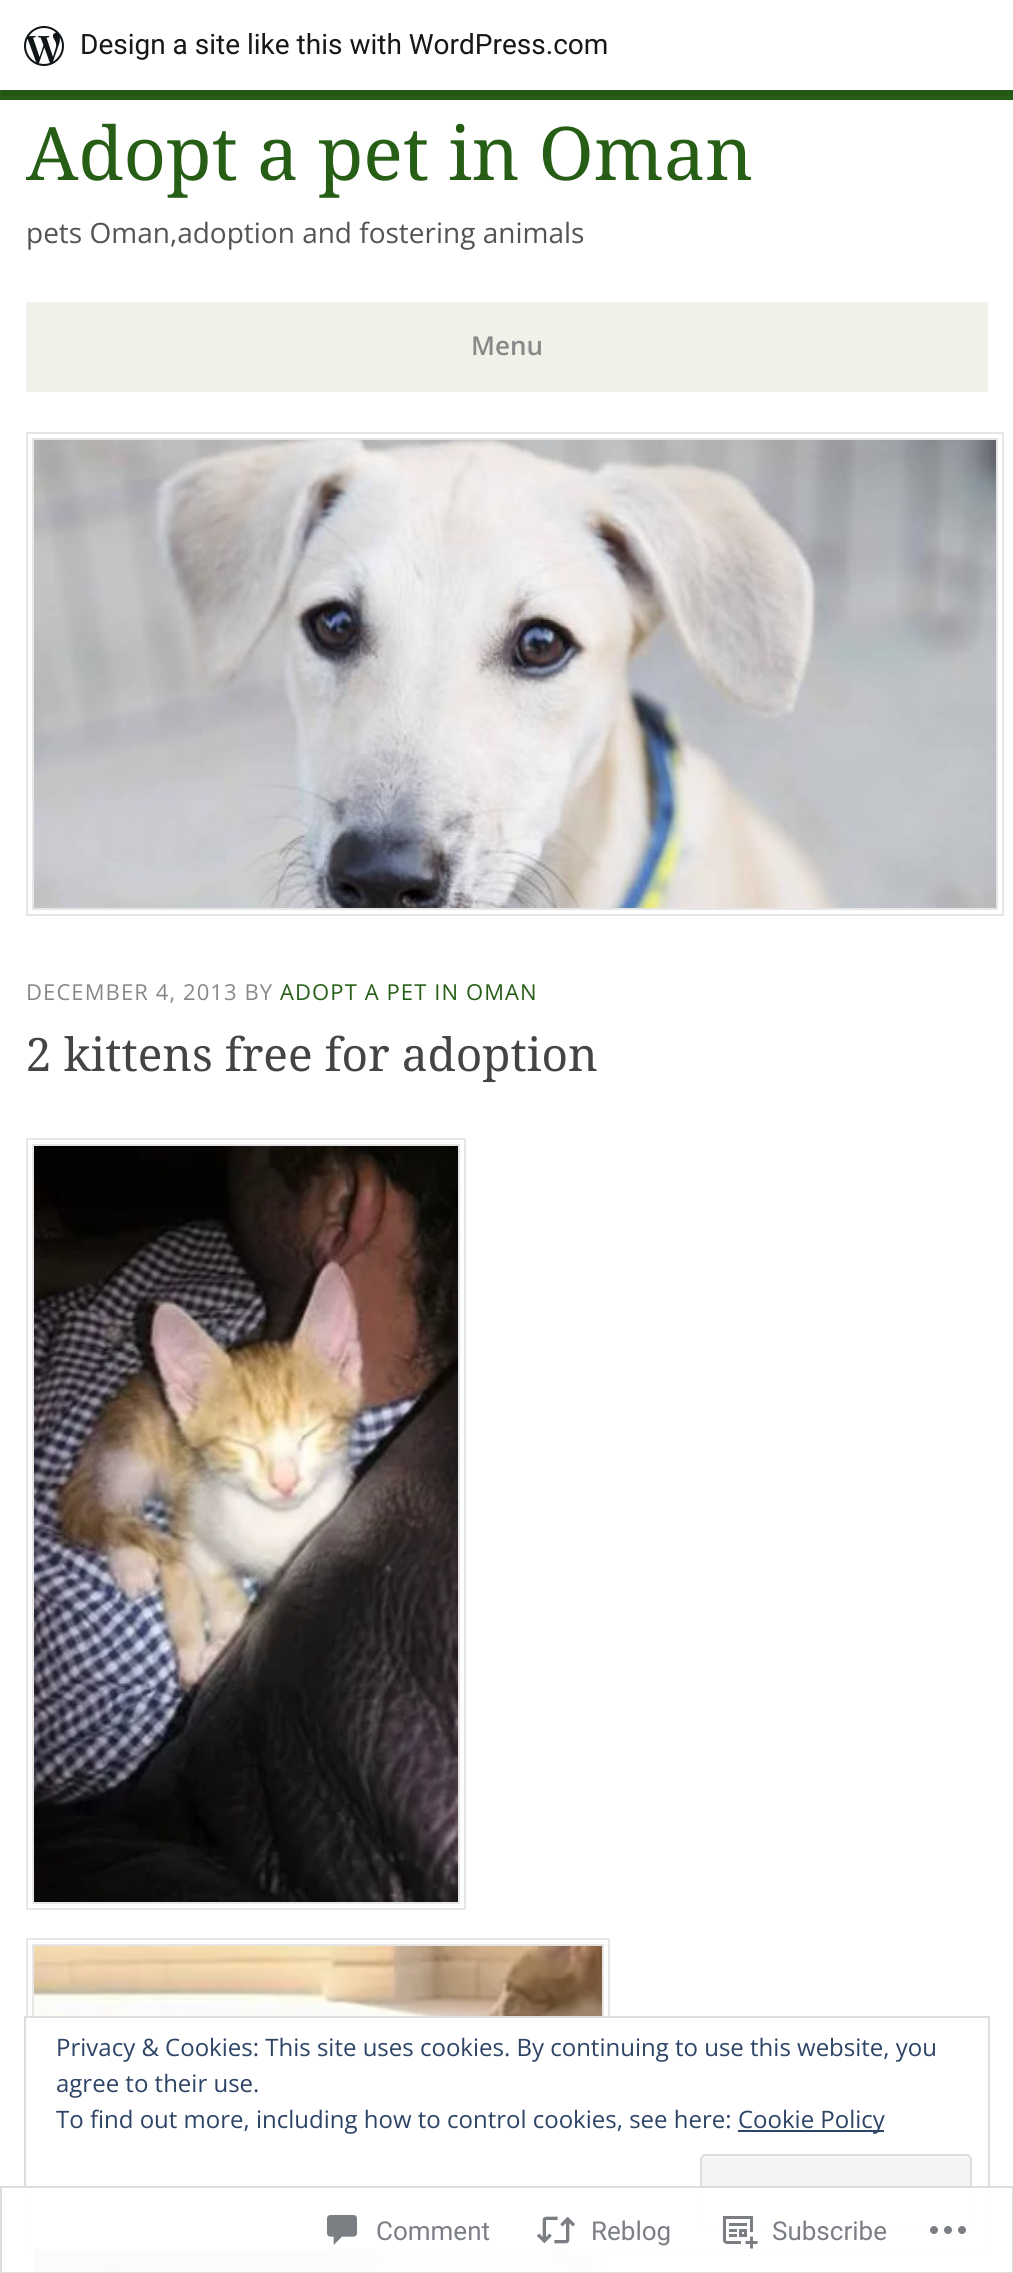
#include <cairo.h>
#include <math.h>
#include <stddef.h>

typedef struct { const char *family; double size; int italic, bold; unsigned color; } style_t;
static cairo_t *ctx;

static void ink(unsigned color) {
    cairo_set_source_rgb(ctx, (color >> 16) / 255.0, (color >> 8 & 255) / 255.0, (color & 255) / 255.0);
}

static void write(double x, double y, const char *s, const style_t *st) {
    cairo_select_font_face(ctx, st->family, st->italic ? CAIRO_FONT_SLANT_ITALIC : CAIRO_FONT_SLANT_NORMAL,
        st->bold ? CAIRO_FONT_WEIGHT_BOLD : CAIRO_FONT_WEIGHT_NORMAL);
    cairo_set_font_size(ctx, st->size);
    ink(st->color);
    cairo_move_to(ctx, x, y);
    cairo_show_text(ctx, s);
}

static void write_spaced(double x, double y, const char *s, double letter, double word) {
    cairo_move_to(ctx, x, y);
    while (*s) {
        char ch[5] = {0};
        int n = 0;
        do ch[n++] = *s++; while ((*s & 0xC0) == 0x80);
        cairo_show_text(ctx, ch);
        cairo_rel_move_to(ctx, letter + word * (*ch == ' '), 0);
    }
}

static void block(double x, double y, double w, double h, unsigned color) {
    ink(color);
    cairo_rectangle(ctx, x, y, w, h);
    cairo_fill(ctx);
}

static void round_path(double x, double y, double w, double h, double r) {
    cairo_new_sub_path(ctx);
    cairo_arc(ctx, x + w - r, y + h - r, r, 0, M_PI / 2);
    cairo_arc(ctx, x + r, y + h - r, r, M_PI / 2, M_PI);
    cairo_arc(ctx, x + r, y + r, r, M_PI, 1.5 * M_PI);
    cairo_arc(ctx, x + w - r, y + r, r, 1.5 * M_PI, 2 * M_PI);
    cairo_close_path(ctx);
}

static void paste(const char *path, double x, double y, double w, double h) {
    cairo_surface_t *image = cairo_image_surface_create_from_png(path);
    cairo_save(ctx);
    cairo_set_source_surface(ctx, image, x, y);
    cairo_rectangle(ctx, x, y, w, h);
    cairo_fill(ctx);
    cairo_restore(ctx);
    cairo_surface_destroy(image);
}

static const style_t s1 = {"Roboto", 28, 0, 0, 0x171717};
static const style_t s2 = {"Droid Serif", 74, 0, 0, 0x265e15};
static const style_t s3 = {"Open Sans", 28, 0, 0, 0x545454};
static const style_t s4 = {"Open Sans SemiBold", 26, 0, 0, 0x888888};
static const style_t s5 = {"Droid Serif", 46, 0, 0, 0x444444};
static const style_t s6 = {"Open Sans", 24, 0, 0, 0x2e4467};
static const style_t s7 = {"Roboto", 26, 0, 0, 0x7b7f85};

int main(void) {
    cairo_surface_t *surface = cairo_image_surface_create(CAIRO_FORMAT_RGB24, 1013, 2273);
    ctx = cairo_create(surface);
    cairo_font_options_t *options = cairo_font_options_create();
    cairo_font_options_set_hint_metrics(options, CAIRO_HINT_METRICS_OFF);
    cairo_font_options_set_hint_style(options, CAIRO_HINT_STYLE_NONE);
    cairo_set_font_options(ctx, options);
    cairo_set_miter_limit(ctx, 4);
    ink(0x265e15);
    cairo_paint(ctx);
    cairo_set_source_rgba(ctx, 0, 0, 0, 0.08);
    cairo_new_path(ctx);
    cairo_move_to(ctx, 2, 90);
    cairo_line_to(ctx, 2, 96);
    cairo_line_to(ctx, 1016, 96);
    cairo_line_to(ctx, 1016, 6);
    cairo_line_to(ctx, 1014, 6);
    cairo_line_to(ctx, 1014, 90);
    cairo_close_path(ctx);
    cairo_fill(ctx);
    block(0, 0, 1013, 90, 0xffffff);
    paste("pic1.png", 24, 26, 40, 40);
    write(80, 54, "Design a site like this with WordPress.com", &s1);
    block(0, 100, 1013, 2173, 0xffffff);
    write(26, 180, "Adopt a pet in Oman", &s2);
    write(26, 243, "pets Oman,adoption and fostering animals", &s3);
    block(26, 302, 962, 90, 0xf1f1e9);
    write(471, 355, "Menu", &s4);
    cairo_rectangle(ctx, 27, 433, 976, 482);
    ink(0xe6e6e6);
    cairo_stroke(ctx);
    cairo_rectangle(ctx, 33, 439, 964, 470);
    cairo_stroke(ctx);
    paste("pic2.png", 34, 440, 962, 468);
    cairo_select_font_face(ctx, "Open Sans", CAIRO_FONT_SLANT_NORMAL, CAIRO_FONT_WEIGHT_NORMAL);
    cairo_set_font_size(ctx, 22);
    ink(0x888888);
    write_spaced(26, 1000, "DECEMBER 4, 2013 BY", 1.1, 0);
    ink(0x265e15);
    write_spaced(280, 1000, "ADOPT A PET IN OMAN", 1.1, 0);
    write(26, 1071, "2 kittens free for adoption", &s5);
    cairo_rectangle(ctx, 27, 1139, 438, 770);
    ink(0xe6e6e6);
    cairo_stroke(ctx);
    cairo_rectangle(ctx, 33, 1145, 426, 758);
    cairo_stroke(ctx);
    paste("pic3.png", 34, 1146, 424, 756);
    cairo_rectangle(ctx, 27, 1939, 582, 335);
    cairo_stroke(ctx);
    cairo_rectangle(ctx, 33, 1945, 570, 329);
    cairo_stroke(ctx);
    paste("pic4.png", 34, 1946, 568, 327);
    block(26, 2018, 584, 230, 0xffffff);
    cairo_rectangle(ctx, 25, 2017, 964, 232);
    ink(0xdedede);
    cairo_stroke(ctx);
    write(56, 2056, "Privacy & Cookies: This site uses cookies. By continuing to use this website, you", &s6);
    write(56, 2092, "agree to their use.", &s6);
    write(56, 2128, "To find out more, including how to control cookies, see here:", &s6);
    block(738, 2130, 146, 2, 0x2e4467);
    write(738, 2128, "Cookie Policy", &s6);
    ink(0xf3f3f3);
    round_path(700, 2154, 272, 78, 6);
    cairo_fill(ctx);
    ink(0xf9f9f9);
    cairo_new_path(ctx);
    cairo_move_to(ctx, 706, 2158);
    cairo_line_to(ctx, 966, 2158);
    cairo_curve_to(ctx, 968, 2158, 970, 2160, 970, 2162);
    cairo_curve_to(ctx, 970, 2159, 970, 2156, 966, 2156);
    cairo_line_to(ctx, 705, 2156);
    cairo_curve_to(ctx, 702, 2157, 702, 2159, 702, 2162);
    cairo_curve_to(ctx, 702, 2160, 704, 2158, 706, 2158);
    cairo_close_path(ctx);
    cairo_fill(ctx);
    round_path(701, 2155, 270, 76, 5);
    ink(0xdedede);
    cairo_stroke(ctx);
    cairo_set_source_rgba(ctx, 1, 1, 1, 0.98);
    cairo_rectangle(ctx, 24, 2186, 966, 87);
    cairo_fill(ctx);
    cairo_rectangle(ctx, 1, 2187, 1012, 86);
    cairo_set_source_rgba(ctx, 0.863, 0.863, 0.871, 0.98);
    cairo_stroke(ctx);
    paste("pic5.png", 327, 2215, 30, 30);
    write(376, 2240, "Comment", &s7);
    paste("pic6.png", 536, 2216, 40, 28);
    write(591, 2240, "Reblog", &s7);
    paste("pic7.png", 723, 2216, 35, 33);
    write(772, 2240, "Subscribe", &s7);
    paste("pic8.png", 930, 2226, 36, 8);
    cairo_surface_write_to_png(surface, "screenshot.png");
    cairo_font_options_destroy(options);
    cairo_destroy(ctx);
    cairo_surface_destroy(surface);
    return 0;
}
